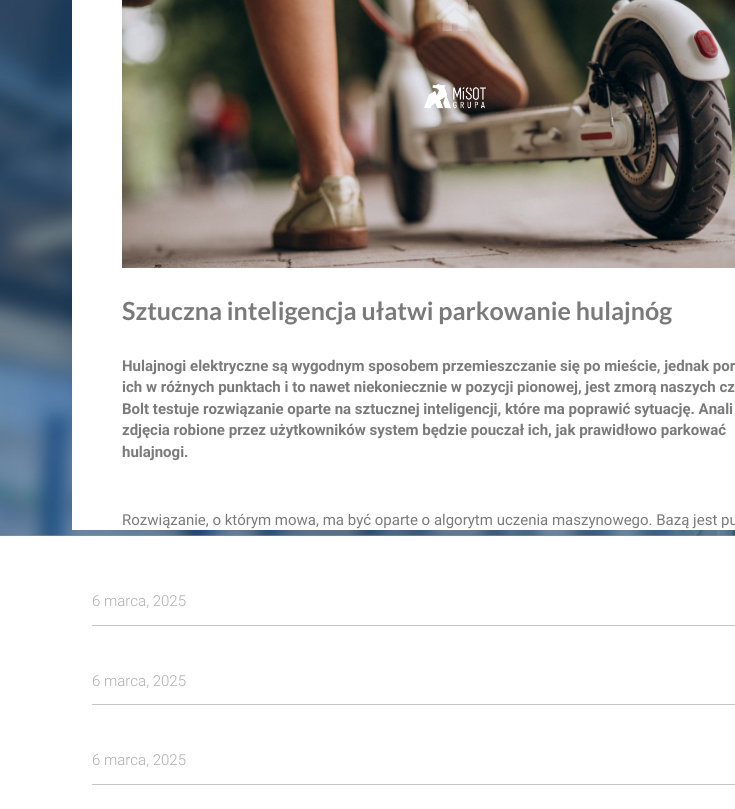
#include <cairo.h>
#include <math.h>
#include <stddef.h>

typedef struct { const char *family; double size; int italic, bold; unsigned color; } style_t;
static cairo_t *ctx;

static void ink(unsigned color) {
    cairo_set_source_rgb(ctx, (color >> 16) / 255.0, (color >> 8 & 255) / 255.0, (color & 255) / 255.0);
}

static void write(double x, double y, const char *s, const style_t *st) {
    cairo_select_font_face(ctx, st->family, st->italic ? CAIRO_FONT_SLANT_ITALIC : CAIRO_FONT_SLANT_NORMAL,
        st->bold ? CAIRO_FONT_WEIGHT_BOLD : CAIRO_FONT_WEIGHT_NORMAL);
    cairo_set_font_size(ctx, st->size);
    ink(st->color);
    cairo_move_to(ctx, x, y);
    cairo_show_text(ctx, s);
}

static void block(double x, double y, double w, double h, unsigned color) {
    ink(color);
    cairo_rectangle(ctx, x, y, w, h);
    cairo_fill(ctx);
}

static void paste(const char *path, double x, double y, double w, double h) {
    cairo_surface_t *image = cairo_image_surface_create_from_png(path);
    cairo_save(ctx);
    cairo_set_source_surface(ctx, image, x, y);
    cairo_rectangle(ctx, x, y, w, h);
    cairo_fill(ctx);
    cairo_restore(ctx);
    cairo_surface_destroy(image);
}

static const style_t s1 = {"Lato", 25, 0, 1, 0x7a7a7a};
static const style_t s2 = {"Roboto", 15, 0, 1, 0x7a7a7a};
static const style_t s3 = {"Roboto", 15, 0, 0, 0x7a7a7a};
static const style_t s4 = {"Roboto Light", 15, 0, 0, 0xadadad};

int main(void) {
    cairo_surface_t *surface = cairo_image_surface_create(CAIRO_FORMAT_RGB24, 735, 809);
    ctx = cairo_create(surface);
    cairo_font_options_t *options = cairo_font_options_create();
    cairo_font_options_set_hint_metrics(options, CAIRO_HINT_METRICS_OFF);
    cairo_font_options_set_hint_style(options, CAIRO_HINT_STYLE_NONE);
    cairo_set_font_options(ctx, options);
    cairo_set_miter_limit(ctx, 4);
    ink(0xffffff);
    cairo_paint(ctx);
    paste("pic3.png", 0, 0, 735, 536);
    block(72, 0, 663, 530, 0xffffff);
    paste("pic4.png", 122, 0, 613, 268);
    paste("pic1.png", 436, 2, 37, 29);
    paste("pic2.png", 424, 84, 62, 25);
    write(122, 320, "Sztuczna inteligencja ułatwi parkowanie hulajnóg", &s1);
    write(122, 371, "Hulajnogi elektryczne są wygodnym sposobem przemieszczanie się po mieście, jednak por", &s2);
    write(122, 392, "ich w różnych punktach i to nawet niekoniecznie w pozycji pionowej, jest zmorą naszych cz", &s2);
    write(122, 414, "Bolt testuje rozwiązanie oparte na sztucznej inteligencji, które ma poprawić sytuację. Anali", &s2);
    write(122, 435, "zdjęcia robione przez użytkowników system będzie pouczał ich, jak prawidłowo parkować", &s2);
    write(122, 457, "hulajnogi.", &s2);
    write(122, 525, "Rozwiązanie, o którym mowa, ma być oparte o algorytm uczenia maszynowego. Bazą jest pu", &s3);
    block(92, 625, 643, 1, 0xc5c6c6);
    write(92, 606, "6 marca, 2025", &s4);
    block(92, 704, 643, 1, 0xc5c6c6);
    write(92, 686, "6 marca, 2025", &s4);
    block(92, 784, 643, 1, 0xc5c6c6);
    write(92, 765, "6 marca, 2025", &s4);
    cairo_surface_write_to_png(surface, "screenshot.png");
    cairo_font_options_destroy(options);
    cairo_destroy(ctx);
    cairo_surface_destroy(surface);
    return 0;
}
